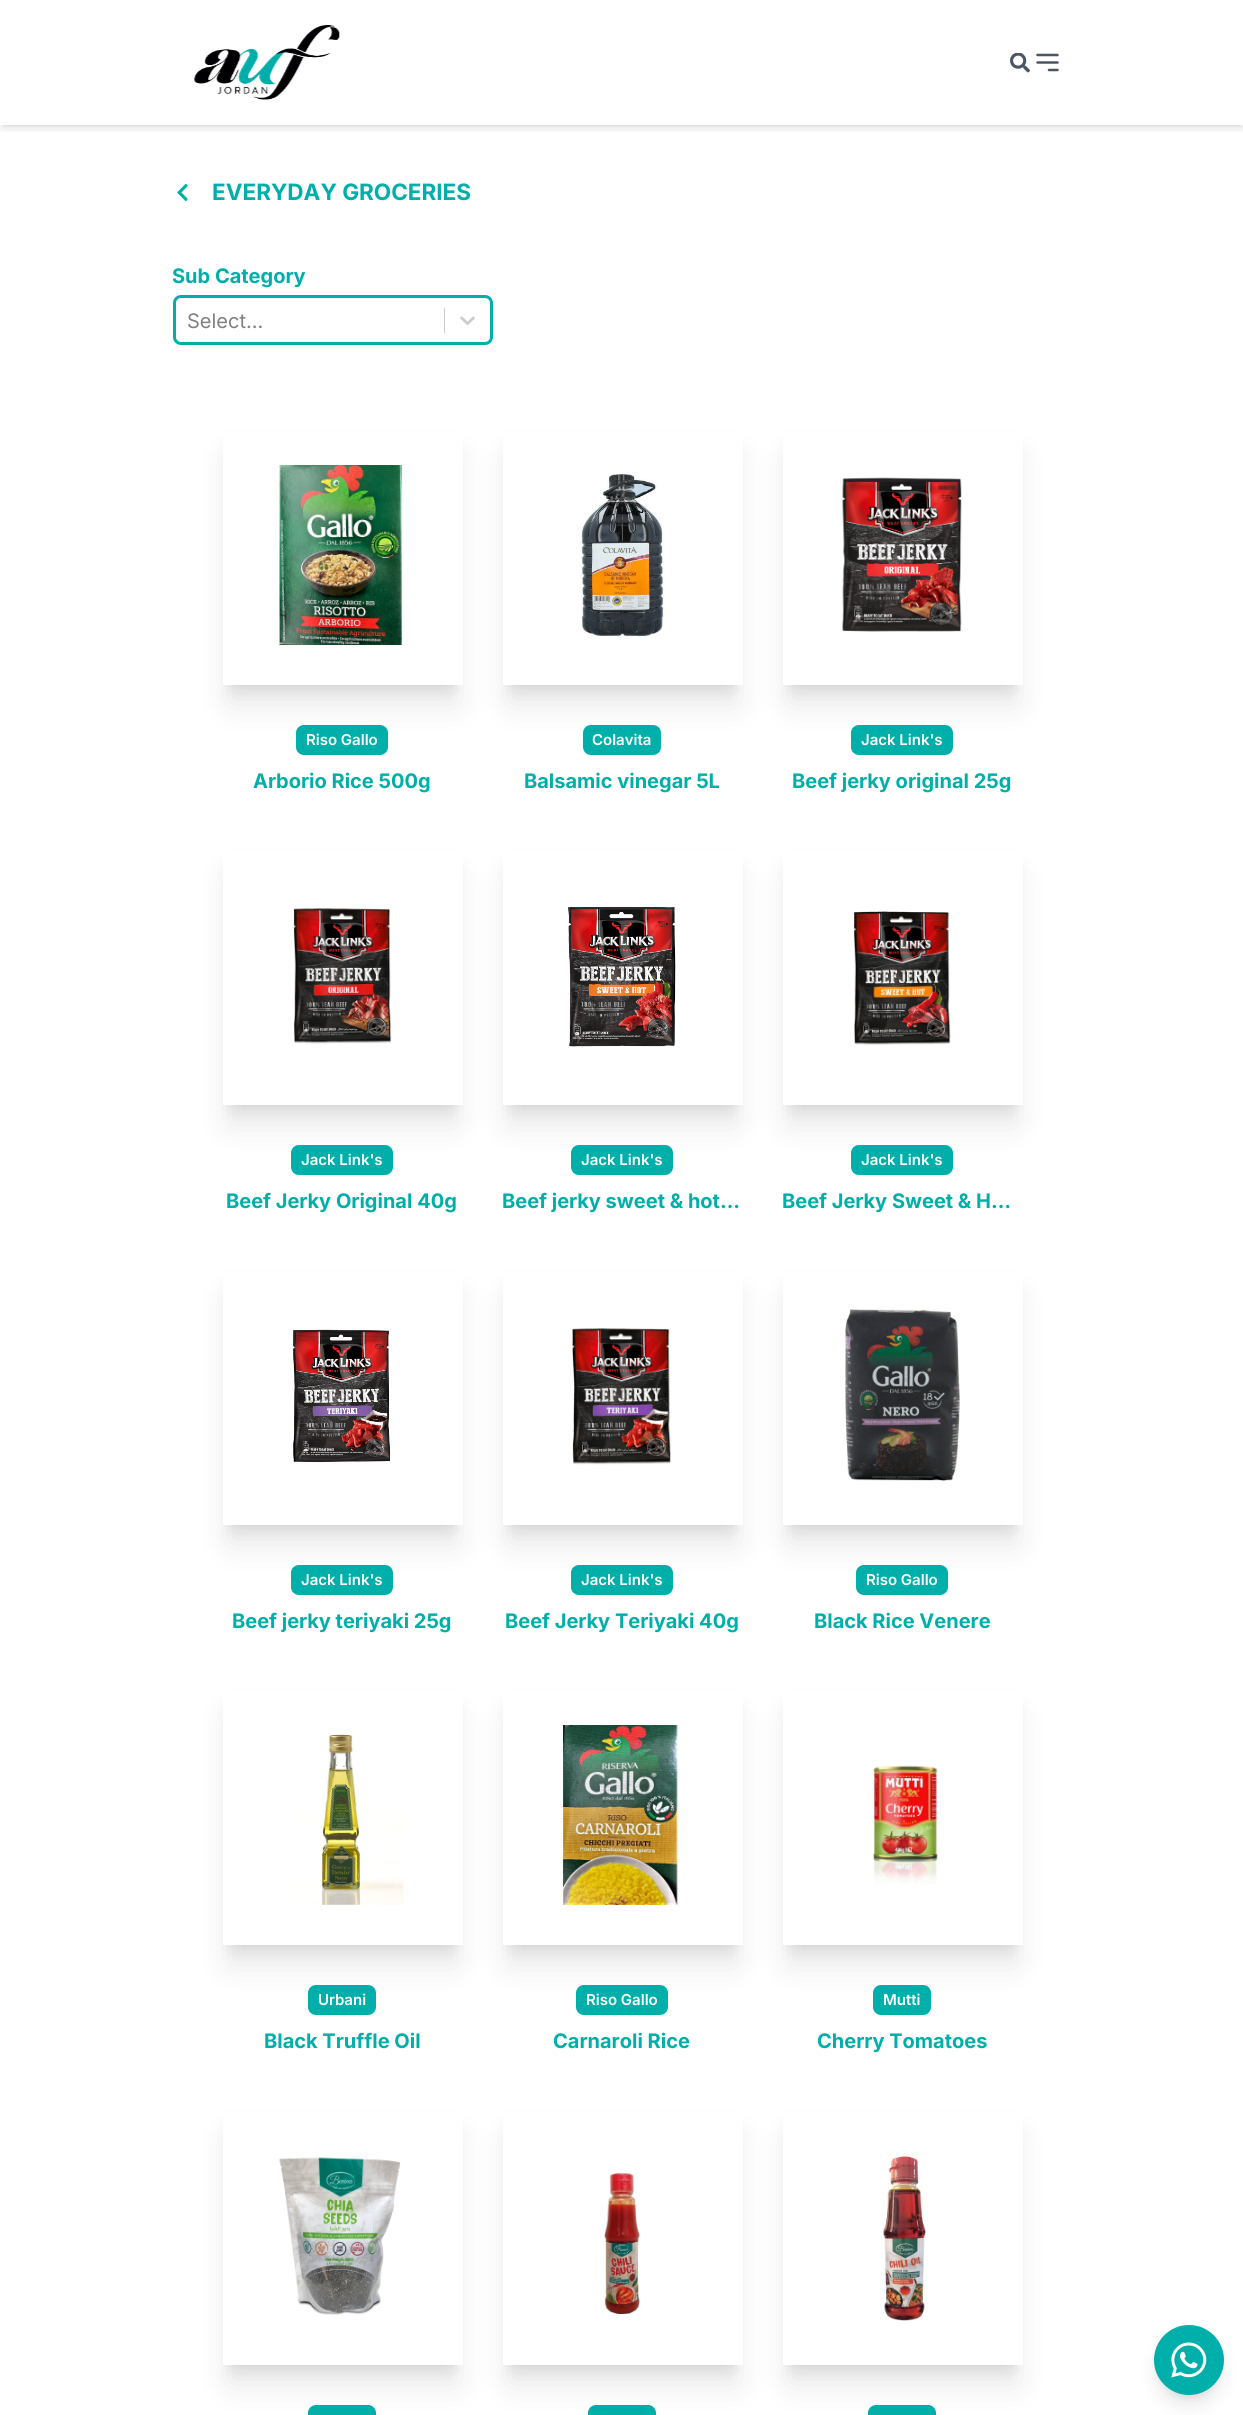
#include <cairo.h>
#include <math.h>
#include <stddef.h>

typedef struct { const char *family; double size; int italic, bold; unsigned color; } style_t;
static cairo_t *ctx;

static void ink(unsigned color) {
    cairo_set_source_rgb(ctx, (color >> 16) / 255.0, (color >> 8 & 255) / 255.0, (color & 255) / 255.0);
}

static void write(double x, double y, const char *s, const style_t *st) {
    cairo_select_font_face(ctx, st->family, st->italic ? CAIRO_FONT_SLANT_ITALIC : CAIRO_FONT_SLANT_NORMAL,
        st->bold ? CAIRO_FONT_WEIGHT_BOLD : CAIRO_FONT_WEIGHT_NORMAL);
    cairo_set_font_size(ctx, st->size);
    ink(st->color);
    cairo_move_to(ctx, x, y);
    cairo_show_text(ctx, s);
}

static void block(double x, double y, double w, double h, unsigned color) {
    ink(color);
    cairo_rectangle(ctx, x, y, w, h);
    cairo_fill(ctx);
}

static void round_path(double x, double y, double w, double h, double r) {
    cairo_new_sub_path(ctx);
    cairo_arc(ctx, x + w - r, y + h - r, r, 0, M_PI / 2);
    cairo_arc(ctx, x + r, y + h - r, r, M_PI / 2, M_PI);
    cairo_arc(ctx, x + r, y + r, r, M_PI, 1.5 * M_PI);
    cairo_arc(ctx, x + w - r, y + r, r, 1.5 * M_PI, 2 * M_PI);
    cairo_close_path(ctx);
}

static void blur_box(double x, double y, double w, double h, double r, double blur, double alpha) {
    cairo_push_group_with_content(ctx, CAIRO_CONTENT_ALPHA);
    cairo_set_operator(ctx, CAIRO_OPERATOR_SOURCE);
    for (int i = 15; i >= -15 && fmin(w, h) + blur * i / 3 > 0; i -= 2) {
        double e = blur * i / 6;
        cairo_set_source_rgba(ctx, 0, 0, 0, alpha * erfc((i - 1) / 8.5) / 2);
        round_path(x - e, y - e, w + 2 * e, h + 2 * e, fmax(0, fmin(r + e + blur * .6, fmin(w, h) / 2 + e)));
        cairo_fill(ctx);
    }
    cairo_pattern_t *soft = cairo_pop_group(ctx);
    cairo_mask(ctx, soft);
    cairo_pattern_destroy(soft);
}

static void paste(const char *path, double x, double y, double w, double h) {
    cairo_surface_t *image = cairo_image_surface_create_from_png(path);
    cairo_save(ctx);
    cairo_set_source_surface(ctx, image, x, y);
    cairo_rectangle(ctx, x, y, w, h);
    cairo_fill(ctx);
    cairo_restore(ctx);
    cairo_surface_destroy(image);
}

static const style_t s1 = {"Inter", 22.5, 0, 1, 0x00afaa};
static const style_t s2 = {"Inter", 20, 0, 1, 0x00afaa};
static const style_t s3 = {"Inter", 20, 0, 0, 0x808080};
static const style_t s4 = {"Inter SemiBold", 15, 0, 0, 0xffffff};

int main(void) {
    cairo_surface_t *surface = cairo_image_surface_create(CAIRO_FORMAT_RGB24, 1243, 2415);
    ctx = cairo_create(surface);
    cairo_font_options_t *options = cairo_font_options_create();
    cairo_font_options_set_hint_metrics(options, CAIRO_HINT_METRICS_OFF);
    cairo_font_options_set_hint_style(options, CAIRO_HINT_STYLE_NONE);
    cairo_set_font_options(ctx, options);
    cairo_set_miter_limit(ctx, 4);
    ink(0xffffff);
    cairo_paint(ctx);
    cairo_save(ctx);
    cairo_rectangle(ctx, 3, 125, 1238, 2);
    cairo_clip(ctx);
    ink(0x000000);
    blur_box(3, 5, 1238, 120, 0, 2.5, 0.1);
    cairo_restore(ctx);
    cairo_save(ctx);
    cairo_rectangle(ctx, 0, 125, 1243, 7);
    cairo_clip(ctx);
    ink(0x000000);
    blur_box(1, 6, 1242, 123, 0, 4, 0.1);
    cairo_restore(ctx);
    paste("pic1.png", 194, 25, 147, 75);
    paste("pic2.png", 1010, 53, 20, 20);
    cairo_new_path(ctx);
    cairo_move_to(ctx, 1037.5, 55);
    cairo_line_to(ctx, 1057.5, 55);
    cairo_move_to(ctx, 1037.5, 62.5);
    cairo_line_to(ctx, 1057.5, 62.5);
    cairo_move_to(ctx, 1049, 70);
    cairo_line_to(ctx, 1057.5, 70);
    ink(0x4b5563);
    cairo_set_line_width(ctx, 2.5);
    cairo_set_line_cap(ctx, CAIRO_LINE_CAP_ROUND);
    cairo_set_line_join(ctx, CAIRO_LINE_JOIN_ROUND);
    cairo_stroke(ctx);
    paste("pic3.png", 177, 184, 11, 17);
    write(212, 200, "EVERYDAY GROCERIES", &s1);
    write(172, 283, "Sub Category", &s2);
    round_path(174.5, 296.5, 317, 47, 6.5);
    cairo_set_line_width(ctx, 3);
    cairo_set_line_cap(ctx, CAIRO_LINE_CAP_BUTT);
    cairo_set_line_join(ctx, CAIRO_LINE_JOIN_MITER);
    cairo_stroke(ctx);
    write(187, 328, "Select...", &s3);
    block(444, 308, 1, 25, 0xcccccc);
    paste("pic4.png", 460, 316, 15, 9);
    ink(0x000000);
    blur_box(230, 443, 225, 245, 0, 6, 0.1);
    ink(0x00afaa);
    round_path(296, 725, 92, 30, 8);
    cairo_fill(ctx);
    ink(0x000000);
    blur_box(229, 456, 227, 248, 0, 15.5, 0.1);
    block(223, 432, 240, 253, 0xffffff);
    paste("pic5.png", 279, 465, 124, 180);
    write(306, 745, "Riso Gallo", &s4);
    write(253, 788, "Arborio Rice 500g", &s2);
    ink(0x000000);
    blur_box(510, 443, 225, 245, 0, 6, 0.1);
    ink(0x00afaa);
    round_path(583, 725, 78, 30, 8);
    cairo_fill(ctx);
    ink(0x000000);
    blur_box(509, 456, 227, 248, 0, 15.5, 0.1);
    block(503, 432, 240, 253, 0xffffff);
    paste("pic6.png", 580, 472, 87, 166);
    write(592, 745, "Colavita", &s4);
    write(524, 788, "Balsamic vinegar 5L", &s2);
    ink(0x000000);
    blur_box(790, 443, 225, 245, 0, 6, 0.1);
    ink(0x00afaa);
    round_path(851, 725, 102, 30, 8);
    cairo_fill(ctx);
    ink(0x000000);
    blur_box(789, 456, 227, 248, 0, 15.5, 0.1);
    block(783, 432, 240, 253, 0xffffff);
    paste("pic7.png", 842, 477, 120, 155);
    write(861, 745, "Jack Link's", &s4);
    write(792, 788, "Beef jerky original 25g", &s2);
    ink(0x000000);
    blur_box(230, 863, 225, 245, 0, 6, 0.1);
    ink(0x00afaa);
    round_path(291, 1145, 102, 30, 8);
    cairo_fill(ctx);
    ink(0x000000);
    blur_box(229, 876, 227, 248, 0, 15.5, 0.1);
    block(223, 852, 240, 253, 0xffffff);
    paste("pic8.png", 293, 908, 99, 136);
    write(301, 1165, "Jack Link's", &s4);
    write(226, 1208, "Beef Jerky Original 40g", &s2);
    ink(0x000000);
    blur_box(510, 863, 225, 245, 0, 6, 0.1);
    ink(0x00afaa);
    round_path(571, 1145, 102, 30, 8);
    cairo_fill(ctx);
    ink(0x000000);
    blur_box(509, 876, 227, 248, 0, 15.5, 0.1);
    block(503, 852, 240, 253, 0xffffff);
    paste("pic9.png", 568, 906, 108, 141);
    write(581, 1165, "Jack Link's", &s4);
    write(502, 1208, "Beef jerky sweet & hot…", &s2);
    ink(0x000000);
    blur_box(790, 863, 225, 245, 0, 6, 0.1);
    ink(0x00afaa);
    round_path(851, 1145, 102, 30, 8);
    cairo_fill(ctx);
    ink(0x000000);
    blur_box(789, 876, 227, 248, 0, 15.5, 0.1);
    block(783, 852, 240, 253, 0xffffff);
    paste("pic10.png", 853, 911, 98, 134);
    write(861, 1165, "Jack Link's", &s4);
    write(782, 1208, "Beef Jerky Sweet & H…", &s2);
    ink(0x000000);
    blur_box(230, 1283, 225, 245, 0, 6, 0.1);
    ink(0x00afaa);
    round_path(291, 1565, 102, 30, 8);
    cairo_fill(ctx);
    ink(0x000000);
    blur_box(229, 1296, 227, 248, 0, 15.5, 0.1);
    block(223, 1272, 240, 253, 0xffffff);
    paste("pic11.png", 293, 1329, 98, 133);
    write(301, 1585, "Jack Link's", &s4);
    write(232, 1628, "Beef jerky teriyaki 25g", &s2);
    ink(0x000000);
    blur_box(510, 1283, 225, 245, 0, 6, 0.1);
    ink(0x00afaa);
    round_path(571, 1565, 102, 30, 8);
    cairo_fill(ctx);
    ink(0x000000);
    blur_box(509, 1296, 227, 248, 0, 15.5, 0.1);
    block(503, 1272, 240, 253, 0xffffff);
    paste("pic12.png", 572, 1328, 99, 137);
    write(581, 1585, "Jack Link's", &s4);
    write(505, 1628, "Beef Jerky Teriyaki 40g", &s2);
    ink(0x000000);
    blur_box(790, 1283, 225, 245, 0, 6, 0.1);
    ink(0x00afaa);
    round_path(856, 1565, 92, 30, 8);
    cairo_fill(ctx);
    ink(0x000000);
    blur_box(789, 1296, 227, 248, 0, 15.5, 0.1);
    block(783, 1272, 240, 253, 0xffffff);
    paste("pic13.png", 845, 1309, 115, 172);
    write(866, 1585, "Riso Gallo", &s4);
    write(814, 1628, "Black Rice Venere", &s2);
    ink(0x000000);
    blur_box(230, 1703, 225, 245, 0, 6, 0.1);
    ink(0x00afaa);
    round_path(308, 1985, 68, 30, 8);
    cairo_fill(ctx);
    ink(0x000000);
    blur_box(229, 1716, 227, 248, 0, 15.5, 0.1);
    block(223, 1692, 240, 253, 0xffffff);
    paste("pic14.png", 292, 1733, 112, 172);
    write(318, 2005, "Urbani", &s4);
    write(264, 2048, "Black Truffle Oil", &s2);
    ink(0x000000);
    blur_box(510, 1703, 225, 245, 0, 6, 0.1);
    ink(0x00afaa);
    round_path(576, 1985, 92, 30, 8);
    cairo_fill(ctx);
    ink(0x000000);
    blur_box(509, 1716, 227, 248, 0, 15.5, 0.1);
    block(503, 1692, 240, 253, 0xffffff);
    paste("pic15.png", 561, 1725, 118, 180);
    write(586, 2005, "Riso Gallo", &s4);
    write(553, 2048, "Carnaroli Rice", &s2);
    ink(0x000000);
    blur_box(790, 1703, 225, 245, 0, 6, 0.1);
    ink(0x00afaa);
    round_path(873, 1985, 58, 30, 8);
    cairo_fill(ctx);
    ink(0x000000);
    blur_box(789, 1716, 227, 248, 0, 15.5, 0.1);
    block(783, 1692, 240, 253, 0xffffff);
    paste("pic16.png", 872, 1765, 66, 119);
    write(883, 2005, "Mutti", &s4);
    write(817, 2048, "Cherry Tomatoes", &s2);
    ink(0x000000);
    blur_box(230, 2123, 225, 245, 0, 6, 0.1);
    ink(0x00afaa);
    round_path(308, 2405, 68, 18, 8);
    cairo_fill(ctx);
    ink(0x000000);
    blur_box(229, 2136, 227, 248, 0, 15.5, 0.1);
    block(223, 2112, 240, 253, 0xffffff);
    paste("pic17.png", 279, 2157, 122, 158);
    ink(0x000000);
    blur_box(510, 2123, 225, 245, 0, 6, 0.1);
    ink(0x00afaa);
    round_path(588, 2405, 68, 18, 8);
    cairo_fill(ctx);
    ink(0x000000);
    blur_box(509, 2136, 227, 248, 0, 15.5, 0.1);
    block(503, 2112, 240, 253, 0xffffff);
    paste("pic18.png", 604, 2172, 36, 143);
    ink(0x000000);
    blur_box(790, 2123, 225, 245, 0, 6, 0.1);
    ink(0x00afaa);
    round_path(868, 2405, 68, 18, 8);
    cairo_fill(ctx);
    ink(0x000000);
    blur_box(789, 2136, 227, 248, 0, 15.5, 0.1);
    block(783, 2112, 240, 253, 0xffffff);
    paste("pic19.png", 883, 2156, 43, 165);
    ink(0x000000);
    blur_box(1159, 2335, 60, 60, 30, 4, 0.1);
    blur_box(1158, 2341, 62, 63, 31, 9.5, 0.1);
    ink(0x00afaa);
    cairo_arc(ctx, 1189, 2360, 35, 0, 2 * M_PI);
    cairo_fill(ctx);
    paste("pic20.png", 1171, 2342, 36, 36);
    cairo_surface_write_to_png(surface, "screenshot.png");
    cairo_font_options_destroy(options);
    cairo_destroy(ctx);
    cairo_surface_destroy(surface);
    return 0;
}
